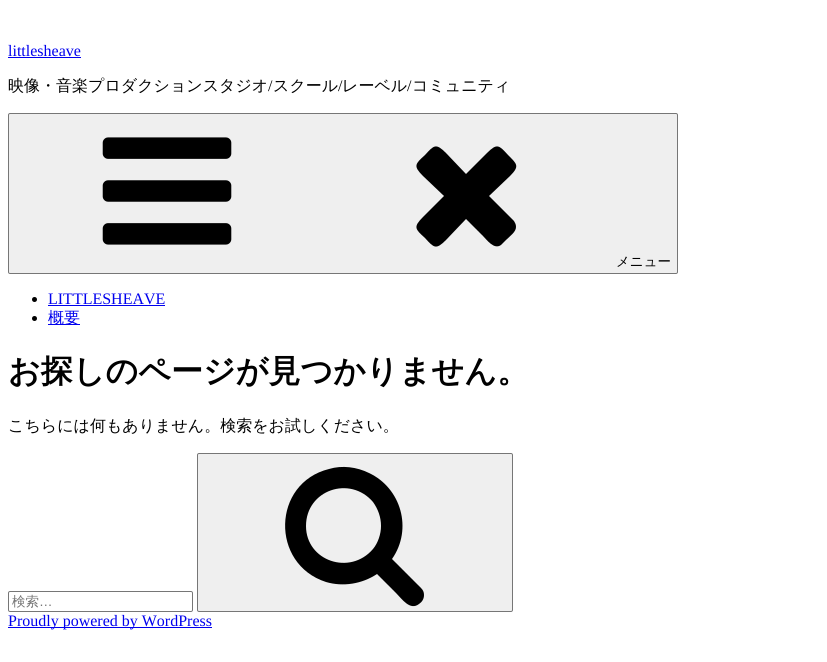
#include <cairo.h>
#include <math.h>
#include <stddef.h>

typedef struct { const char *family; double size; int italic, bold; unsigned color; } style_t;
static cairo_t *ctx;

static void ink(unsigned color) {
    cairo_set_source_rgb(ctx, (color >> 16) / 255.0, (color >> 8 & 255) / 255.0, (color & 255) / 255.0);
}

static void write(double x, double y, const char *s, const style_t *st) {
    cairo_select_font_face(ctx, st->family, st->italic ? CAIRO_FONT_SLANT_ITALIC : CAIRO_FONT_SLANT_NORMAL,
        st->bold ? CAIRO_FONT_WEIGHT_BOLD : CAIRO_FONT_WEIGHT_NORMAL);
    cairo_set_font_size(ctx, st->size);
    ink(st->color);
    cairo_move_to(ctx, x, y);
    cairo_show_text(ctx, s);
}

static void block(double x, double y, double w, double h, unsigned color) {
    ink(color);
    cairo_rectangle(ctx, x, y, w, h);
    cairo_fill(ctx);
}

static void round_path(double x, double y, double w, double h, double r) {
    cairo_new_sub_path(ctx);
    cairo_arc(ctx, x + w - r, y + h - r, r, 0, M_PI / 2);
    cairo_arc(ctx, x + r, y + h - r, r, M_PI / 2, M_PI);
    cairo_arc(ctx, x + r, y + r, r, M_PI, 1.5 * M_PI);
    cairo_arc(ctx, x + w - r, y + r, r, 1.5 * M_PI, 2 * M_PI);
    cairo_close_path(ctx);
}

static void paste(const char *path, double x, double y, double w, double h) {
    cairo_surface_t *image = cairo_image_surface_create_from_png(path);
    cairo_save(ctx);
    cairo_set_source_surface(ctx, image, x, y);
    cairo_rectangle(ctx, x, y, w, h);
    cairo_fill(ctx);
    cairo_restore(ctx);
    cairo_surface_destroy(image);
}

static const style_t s1 = {"Liberation Serif", 16, 0, 0, 0x0000ee};
static const style_t s2 = {"WenQuanYi Zen Hei Medium", 16, 0, 0, 0x000000};
static const style_t s3 = {"Liberation Serif", 16, 0, 0, 0x000000};
static const style_t s4 = {"WenQuanYi Zen Hei Medium", 13.5, 0, 0, 0x000000};
static const style_t s5 = {"WenQuanYi Zen Hei Medium", 16, 0, 0, 0x0000ee};
static const style_t s6 = {"WenQuanYi Zen Hei", 32, 0, 1, 0x000000};
static const style_t s7 = {"WenQuanYi Zen Hei Medium", 13.5, 0, 0, 0x757575};
static const style_t s8 = {"Liberation Sans", 13.5, 0, 0, 0x757575};

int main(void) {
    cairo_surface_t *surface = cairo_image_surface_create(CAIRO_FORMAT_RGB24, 827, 662);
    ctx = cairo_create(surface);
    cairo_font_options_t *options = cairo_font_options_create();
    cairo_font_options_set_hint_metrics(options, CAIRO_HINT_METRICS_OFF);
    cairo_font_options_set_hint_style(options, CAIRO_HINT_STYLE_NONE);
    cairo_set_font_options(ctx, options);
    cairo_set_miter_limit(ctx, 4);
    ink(0xffffff);
    cairo_paint(ctx);
    write(8, 56, "littlesheave", &s1);
    block(8, 57, 73, 1, 0x0000ee);
    write(8, 91, "映像・音楽プロダクションスタジオ", &s2);
    write(268, 91, "/", &s3);
    write(273, 91, "スクール", &s2);
    write(338, 91, "/", &s3);
    write(342, 91, "レーベル", &s2);
    write(407, 91, "/", &s3);
    write(412, 91, "コミュニティ", &s2);
    ink(0xefefef);
    round_path(8.5, 113.5, 669, 160, 1.5);
    cairo_fill_preserve(ctx);
    ink(0x767676);
    cairo_set_line_width(ctx, 1);
    cairo_stroke(ctx);
    paste("pic1.png", 102, 137, 130, 108);
    ink(0x000000);
    cairo_new_path(ctx);
    cairo_move_to(ctx, 516, 227);
    cairo_curve_to(ctx, 516, 232, 510, 236, 506, 240);
    cairo_line_to(ctx, 501, 245);
    cairo_curve_to(ctx, 494, 250, 487, 240, 483, 236);
    cairo_line_to(ctx, 466, 219);
    cairo_line_to(ctx, 446, 240);
    cairo_curve_to(ctx, 436, 250, 434, 248, 425, 238);
    cairo_curve_to(ctx, 415, 229, 413, 227, 423, 217);
    cairo_line_to(ctx, 444, 196);
    cairo_line_to(ctx, 423, 176);
    cairo_curve_to(ctx, 413, 166, 415, 164, 425, 155);
    cairo_curve_to(ctx, 434, 145, 436, 143, 446, 153);
    cairo_line_to(ctx, 466, 174);
    cairo_line_to(ctx, 487, 153);
    cairo_curve_to(ctx, 497, 143, 499, 145, 508, 155);
    cairo_curve_to(ctx, 517, 164, 520, 166, 510, 176);
    cairo_line_to(ctx, 489, 196);
    cairo_line_to(ctx, 514, 221);
    cairo_curve_to(ctx, 515, 223, 516, 224, 516, 227);
    cairo_close_path(ctx);
    cairo_fill(ctx);
    write(616, 266, "メニュー", &s4);
    cairo_new_path(ctx);
    cairo_arc(ctx, 34.5, 299.5, 2.5, 0, 2 * M_PI);
    cairo_fill(ctx);
    write(48, 304, "LITTLESHEAVE", &s1);
    block(48, 305, 117, 1, 0x0000ee);
    ink(0x000000);
    cairo_new_path(ctx);
    cairo_arc(ctx, 34.5, 318.5, 2.5, 0, 2 * M_PI);
    cairo_fill(ctx);
    block(48, 324, 32, 1, 0x0000ee);
    write(48, 323, "概要", &s5);
    write(8, 382, "お探しのページが見つかりません。", &s6);
    write(8, 431, "こちらには何もありません。検索をお試しください。", &s2);
    round_path(8.5, 591.5, 184, 20, 1.5);
    ink(0x767676);
    cairo_stroke(ctx);
    write(12, 606, "検索", &s7);
    write(39, 606, "…", &s8);
    ink(0xefefef);
    round_path(197.5, 453.5, 315, 158, 1.5);
    cairo_fill_preserve(ctx);
    ink(0x767676);
    cairo_stroke(ctx);
    ink(0x000000);
    cairo_new_path(ctx);
    cairo_move_to(ctx, 381, 526);
    cairo_curve_to(ctx, 381, 517, 378, 509, 373, 502);
    cairo_curve_to(ctx, 350, 475, 306, 490, 306, 526);
    cairo_curve_to(ctx, 306, 561, 350, 576, 373, 549);
    cairo_curve_to(ctx, 378, 543, 381, 534, 381, 526);
    cairo_close_path(ctx);
    cairo_move_to(ctx, 424, 595);
    cairo_curve_to(ctx, 424, 599, 422, 602, 419, 604);
    cairo_curve_to(ctx, 410, 611, 402, 599, 396, 593);
    cairo_line_to(ctx, 377, 574);
    cairo_curve_to(ctx, 362, 584, 343, 587, 326, 582);
    cairo_curve_to(ctx, 270, 564, 272, 483, 329, 469);
    cairo_curve_to(ctx, 342, 465, 357, 467, 369, 473);
    cairo_curve_to(ctx, 401, 488, 413, 529, 392, 559);
    cairo_line_to(ctx, 421, 588);
    cairo_curve_to(ctx, 423, 590, 424, 592, 424, 595);
    cairo_close_path(ctx);
    cairo_fill(ctx);
    block(8, 627, 204, 1, 0x0000ee);
    write(8, 626, "Proudly powered by WordPress", &s1);
    cairo_surface_write_to_png(surface, "screenshot.png");
    cairo_font_options_destroy(options);
    cairo_destroy(ctx);
    cairo_surface_destroy(surface);
    return 0;
}
